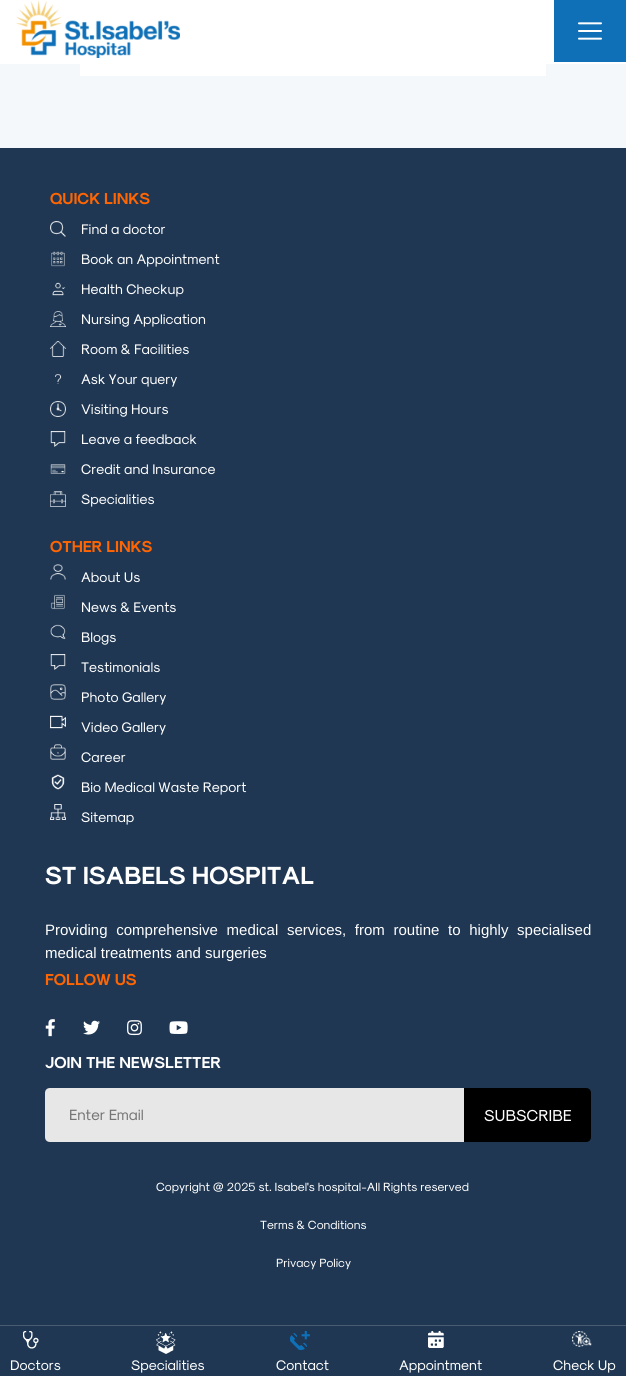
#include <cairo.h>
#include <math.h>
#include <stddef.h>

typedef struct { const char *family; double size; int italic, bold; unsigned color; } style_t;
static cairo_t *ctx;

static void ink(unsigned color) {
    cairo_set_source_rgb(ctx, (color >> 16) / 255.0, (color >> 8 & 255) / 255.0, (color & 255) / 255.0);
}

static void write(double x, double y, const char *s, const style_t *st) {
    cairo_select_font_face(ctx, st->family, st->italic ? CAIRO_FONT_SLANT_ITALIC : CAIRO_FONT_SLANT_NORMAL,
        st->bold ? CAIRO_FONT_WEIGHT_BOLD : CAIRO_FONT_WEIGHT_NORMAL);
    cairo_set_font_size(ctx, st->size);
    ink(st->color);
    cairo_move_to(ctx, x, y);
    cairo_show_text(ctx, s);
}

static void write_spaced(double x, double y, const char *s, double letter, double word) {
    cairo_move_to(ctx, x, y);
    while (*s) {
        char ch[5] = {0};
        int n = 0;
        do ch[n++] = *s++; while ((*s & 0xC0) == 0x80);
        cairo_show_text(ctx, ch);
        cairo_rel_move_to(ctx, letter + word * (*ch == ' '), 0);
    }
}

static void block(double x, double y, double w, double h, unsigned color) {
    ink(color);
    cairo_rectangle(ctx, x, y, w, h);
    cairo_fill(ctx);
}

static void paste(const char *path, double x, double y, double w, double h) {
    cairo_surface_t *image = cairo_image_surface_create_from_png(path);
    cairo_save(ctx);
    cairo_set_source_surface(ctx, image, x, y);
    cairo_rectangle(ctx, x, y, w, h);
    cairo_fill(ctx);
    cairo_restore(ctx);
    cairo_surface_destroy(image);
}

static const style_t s1 = {"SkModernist", 16, 0, 1, 0xff6501};
static const style_t s2 = {"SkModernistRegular", 14, 0, 0, 0xffffff};
static const style_t s3 = {"SkModernist", 25, 0, 1, 0xffffff};
static const style_t s4 = {"Liberation Sans", 15, 0, 0, 0xffffff};
static const style_t s5 = {"SkModernist", 16, 0, 1, 0xffffff};
static const style_t s6 = {"SkModernistRegular", 15, 0, 0, 0x757575};
static const style_t s7 = {"SkModernistRegular", 16, 0, 0, 0xffffff};
static const style_t s8 = {"SkModernistRegular", 12, 0, 0, 0xffffff};

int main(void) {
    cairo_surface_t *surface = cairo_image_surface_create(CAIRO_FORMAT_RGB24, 626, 1376);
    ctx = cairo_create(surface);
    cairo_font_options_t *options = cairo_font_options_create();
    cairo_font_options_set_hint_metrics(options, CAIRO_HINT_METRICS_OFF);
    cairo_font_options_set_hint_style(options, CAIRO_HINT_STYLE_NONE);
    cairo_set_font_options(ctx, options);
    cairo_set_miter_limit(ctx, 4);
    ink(0xf4f8fb);
    cairo_paint(ctx);
    block(0, 0, 626, 64, 0xffffff);
    paste("pic1.png", 16, 0, 164, 58);
    block(554, 0, 72, 62, 0x0f70b7);
    paste("pic2.png", 578, 22, 24, 18);
    block(80, 64, 466, 12, 0xffffff);
    block(0, 148, 626, 1228, 0x1f3753);
    write(50, 204, "QUICK LINKS", &s1);
    paste("pic3.png", 50, 221, 16, 16);
    write(81, 234, "Find a doctor", &s2);
    paste("pic4.png", 51, 251, 14, 16);
    write(81, 264, "Book an Appointment", &s2);
    paste("pic5.png", 52, 282, 14, 14);
    write(81, 294, "Health Checkup", &s2);
    paste("pic6.png", 50, 311, 16, 16);
    write(81, 324, "Nursing Application", &s2);
    paste("pic7.png", 50, 341, 16, 16);
    write(81, 354, "Room & Facilities", &s2);
    paste("pic8.png", 55, 374, 7, 10);
    write(81, 384, "Ask Your query", &s2);
    paste("pic9.png", 50, 401, 16, 16);
    write(81, 414, "Visiting Hours", &s2);
    paste("pic10.png", 50, 431, 16, 16);
    write(81, 444, "Leave a feedback", &s2);
    paste("pic11.png", 50, 464, 16, 10);
    write(81, 474, "Credit and Insurance", &s2);
    paste("pic12.png", 50, 491, 16, 16);
    write(81, 504, "Specialities", &s2);
    write(50, 552, "OTHER LINKS", &s1);
    paste("pic13.png", 50, 564, 16, 16);
    write(81, 582, "About Us", &s2);
    paste("pic14.png", 50, 594, 15, 16);
    write(81, 612, "News & Events", &s2);
    paste("pic15.png", 50, 624, 16, 16);
    write(81, 642, "Blogs", &s2);
    paste("pic10.png", 50, 654, 16, 16);
    write(81, 672, "Testimonials", &s2);
    paste("pic16.png", 50, 684, 16, 16);
    write(81, 702, "Photo Gallery", &s2);
    paste("pic17.png", 50, 715, 16, 14);
    write(81, 732, "Video Gallery", &s2);
    paste("pic18.png", 50, 744, 16, 16);
    write(81, 762, "Career", &s2);
    paste("pic19.png", 51, 774, 14, 16);
    write(81, 792, "Bio Medical Waste Report", &s2);
    paste("pic20.png", 50, 804, 16, 16);
    write(81, 822, "Sitemap", &s2);
    write(45, 884, "ST ISABELS HOSPITAL", &s3);
    cairo_select_font_face(ctx, "Liberation Sans", CAIRO_FONT_SLANT_NORMAL, CAIRO_FONT_WEIGHT_NORMAL);
    cairo_set_font_size(ctx, 15);
    write_spaced(45, 935, "Providing comprehensive medical services, from routine to highly specialised", 0, 4.5);
    write(45, 958, "medical treatments and surgeries", &s4);
    write(45, 985, "FOLLOW US", &s1);
    paste("pic21.png", 45, 1019, 10, 18);
    paste("pic22.png", 83, 1020, 17, 15);
    paste("pic23.png", 127, 1020, 15, 16);
    paste("pic24.png", 169, 1021, 19, 13);
    write(45, 1068, "JOIN THE NEWSLETTER", &s5);
    ink(0xe7e7e7);
    cairo_new_path(ctx);
    cairo_move_to(ctx, 50, 1088);
    cairo_line_to(ctx, 464, 1088);
    cairo_line_to(ctx, 464, 1142);
    cairo_line_to(ctx, 50, 1142);
    cairo_curve_to(ctx, 47, 1142, 45, 1140, 45, 1137);
    cairo_line_to(ctx, 45, 1093);
    cairo_curve_to(ctx, 45, 1090, 47, 1088, 50, 1088);
    cairo_close_path(ctx);
    cairo_fill(ctx);
    write(69, 1120, "Enter Email", &s6);
    ink(0x000000);
    cairo_new_path(ctx);
    cairo_move_to(ctx, 464, 1088);
    cairo_line_to(ctx, 586, 1088);
    cairo_curve_to(ctx, 589, 1088, 591, 1090, 591, 1093);
    cairo_line_to(ctx, 591, 1137);
    cairo_curve_to(ctx, 591, 1140, 589, 1142, 586, 1142);
    cairo_line_to(ctx, 464, 1142);
    cairo_close_path(ctx);
    cairo_fill(ctx);
    write(484, 1121, "SUBSCRIBE", &s7);
    write(156, 1191, "Copyright @ 2025 st. Isabel's hospital-All Rights reserved", &s8);
    write(260, 1229, "Terms & Conditions", &s8);
    write(276, 1267, "Privacy Policy", &s8);
    block(0, 1325, 626, 1, 0x495c72);
    paste("pic25.png", 23, 1331, 16, 18);
    write(10, 1370, "Doctors", &s2);
    paste("pic26.png", 156, 1331, 20, 23);
    write(131, 1370, "Specialities", &s2);
    paste("pic27.png", 290, 1331, 20, 19);
    write(276, 1370, "Contact", &s2);
    paste("pic28.png", 428, 1331, 16, 17);
    write(399, 1370, "Appointment", &s2);
    paste("pic29.png", 572, 1331, 20, 16);
    write(553, 1370, "Check Up", &s2);
    cairo_surface_write_to_png(surface, "screenshot.png");
    cairo_font_options_destroy(options);
    cairo_destroy(ctx);
    cairo_surface_destroy(surface);
    return 0;
}
